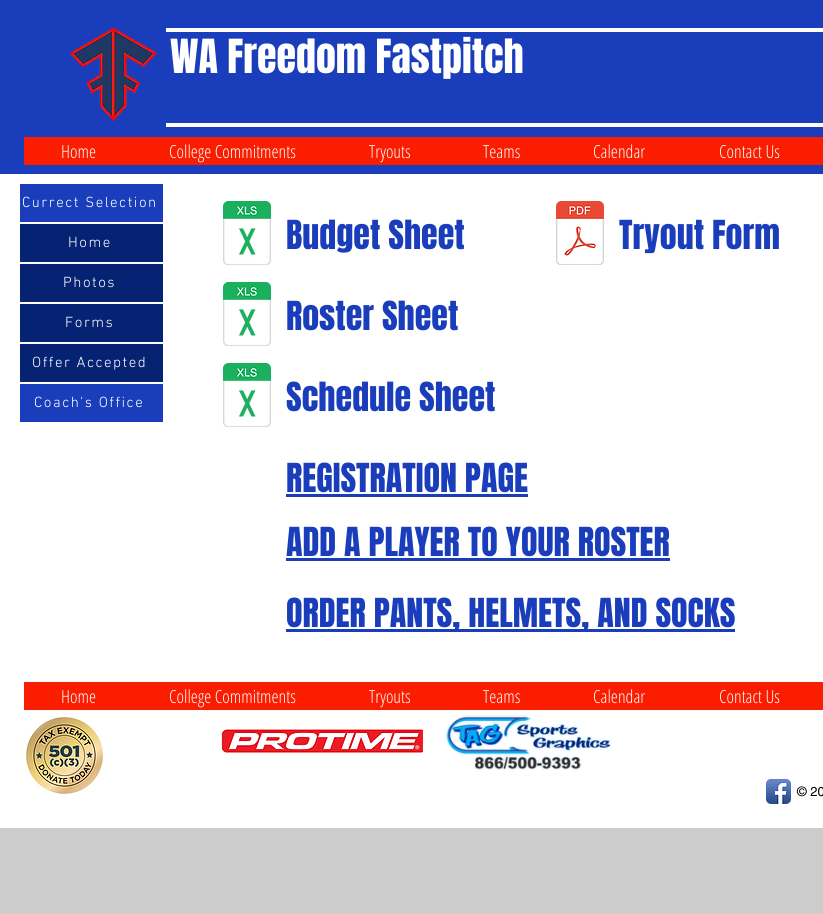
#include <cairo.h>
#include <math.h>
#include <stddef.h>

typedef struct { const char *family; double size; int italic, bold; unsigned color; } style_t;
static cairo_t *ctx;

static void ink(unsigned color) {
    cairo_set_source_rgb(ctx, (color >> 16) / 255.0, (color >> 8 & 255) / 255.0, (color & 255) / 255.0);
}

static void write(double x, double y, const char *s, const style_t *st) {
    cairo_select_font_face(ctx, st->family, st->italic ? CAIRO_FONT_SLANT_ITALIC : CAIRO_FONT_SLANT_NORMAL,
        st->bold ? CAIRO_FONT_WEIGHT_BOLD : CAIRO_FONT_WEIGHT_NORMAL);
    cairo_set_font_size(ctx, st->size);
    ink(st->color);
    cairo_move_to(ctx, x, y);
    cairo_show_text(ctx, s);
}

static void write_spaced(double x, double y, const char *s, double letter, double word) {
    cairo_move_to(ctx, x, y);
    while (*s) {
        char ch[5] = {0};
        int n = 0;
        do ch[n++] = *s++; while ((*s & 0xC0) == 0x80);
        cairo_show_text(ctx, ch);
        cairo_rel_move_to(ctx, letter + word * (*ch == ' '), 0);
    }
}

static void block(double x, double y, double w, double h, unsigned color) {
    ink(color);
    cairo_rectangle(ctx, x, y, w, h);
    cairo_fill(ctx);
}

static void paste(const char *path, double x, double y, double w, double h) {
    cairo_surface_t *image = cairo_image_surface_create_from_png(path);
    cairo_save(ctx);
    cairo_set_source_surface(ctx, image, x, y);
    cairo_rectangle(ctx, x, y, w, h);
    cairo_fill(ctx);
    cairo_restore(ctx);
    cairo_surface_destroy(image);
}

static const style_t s1 = {"Anton", 40, 0, 0, 0xffffff};
static const style_t s2 = {"Open Sans Condensed Light", 18, 0, 0, 0xffffff};
static const style_t s3 = {"Anton", 34, 0, 0, 0x1a3dbc};
static const style_t s4 = {"helvetica", 13, 0, 0, 0x000000};

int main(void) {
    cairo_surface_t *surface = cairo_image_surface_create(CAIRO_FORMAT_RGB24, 823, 914);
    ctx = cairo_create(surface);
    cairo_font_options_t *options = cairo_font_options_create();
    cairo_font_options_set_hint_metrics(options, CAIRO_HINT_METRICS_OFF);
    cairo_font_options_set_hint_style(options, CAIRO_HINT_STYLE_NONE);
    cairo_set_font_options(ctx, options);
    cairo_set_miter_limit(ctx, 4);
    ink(0xcccccc);
    cairo_paint(ctx);
    block(0, 0, 823, 174, 0x1a3dbc);
    paste("pic1.png", 70, 27, 87, 94);
    block(166, 28, 657, 4, 0xffffff);
    write(170, 73, "WA Freedom Fastpitch", &s1);
    block(166, 123, 657, 4, 0xffffff);
    block(24, 137, 799, 28, 0xfa1d00);
    write(61, 158, "Home", &s2);
    write(169, 158, "College Commitments", &s2);
    write(369, 158, "Tryouts", &s2);
    write(483, 158, "Teams", &s2);
    write(593, 158, "Calendar", &s2);
    write(719, 158, "Contact Us", &s2);
    block(0, 174, 823, 654, 0xffffff);
    block(20, 184, 143, 38, 0x1a3dbc);
    cairo_select_font_face(ctx, "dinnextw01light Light", CAIRO_FONT_SLANT_NORMAL, CAIRO_FONT_WEIGHT_NORMAL);
    cairo_set_font_size(ctx, 15);
    ink(0xffffff);
    write_spaced(22, 207, "Currect Selection", 1.5, 0);
    paste("pic2.png", 223, 201, 48, 64);
    write(286, 249, "Budget Sheet", &s3);
    paste("pic3.png", 556, 201, 48, 64);
    write(619, 249, "Tryout Form", &s3);
    block(20, 224, 143, 38, 0x062272);
    cairo_select_font_face(ctx, "dinnextw01light Light", CAIRO_FONT_SLANT_NORMAL, CAIRO_FONT_WEIGHT_NORMAL);
    cairo_set_font_size(ctx, 15);
    ink(0xffffff);
    write_spaced(68, 247, "Home", 1.5, 0);
    block(20, 264, 143, 38, 0x062272);
    ink(0xffffff);
    write_spaced(63, 287, "Photos", 1.5, 0);
    paste("pic2.png", 223, 282, 48, 64);
    write(286, 330, "Roster Sheet", &s3);
    block(20, 304, 143, 38, 0x062272);
    cairo_select_font_face(ctx, "dinnextw01light Light", CAIRO_FONT_SLANT_NORMAL, CAIRO_FONT_WEIGHT_NORMAL);
    cairo_set_font_size(ctx, 15);
    ink(0xffffff);
    write_spaced(65, 327, "Forms", 1.5, 0);
    block(20, 344, 143, 38, 0x062272);
    ink(0xffffff);
    write_spaced(32, 367, "Offer Accepted", 1.5, 0);
    paste("pic2.png", 223, 363, 48, 64);
    write(286, 411, "Schedule Sheet", &s3);
    block(20, 384, 143, 38, 0x1a3dbc);
    cairo_select_font_face(ctx, "dinnextw01light Light", CAIRO_FONT_SLANT_NORMAL, CAIRO_FONT_WEIGHT_NORMAL);
    cairo_set_font_size(ctx, 15);
    ink(0xffffff);
    write_spaced(34, 407, "Coach's Office", 1.5, 0);
    write(286, 492, "REGISTRATION PAGE", &s3);
    block(286, 494, 242, 3, 0x1a3dbc);
    write(286, 556, "ADD A PLAYER TO YOUR ROSTER", &s3);
    block(286, 558, 384, 3, 0x1a3dbc);
    block(286, 629, 449, 3, 0x1a3dbc);
    write(286, 627, "ORDER PANTS, HELMETS, AND SOCKS", &s3);
    block(24, 682, 799, 28, 0xfa1d00);
    write(61, 703, "Home", &s2);
    write(169, 703, "College Commitments", &s2);
    write(369, 703, "Tryouts", &s2);
    write(483, 703, "Teams", &s2);
    write(593, 703, "Calendar", &s2);
    write(719, 703, "Contact Us", &s2);
    paste("pic4.png", 26, 717, 77, 77);
    paste("pic5.png", 221, 729, 202, 24);
    paste("pic6.png", 445, 715, 167, 55);
    paste("pic7.png", 766, 779, 25, 25);
    write(797, 796, "© 20", &s4);
    cairo_surface_write_to_png(surface, "screenshot.png");
    cairo_font_options_destroy(options);
    cairo_destroy(ctx);
    cairo_surface_destroy(surface);
    return 0;
}
